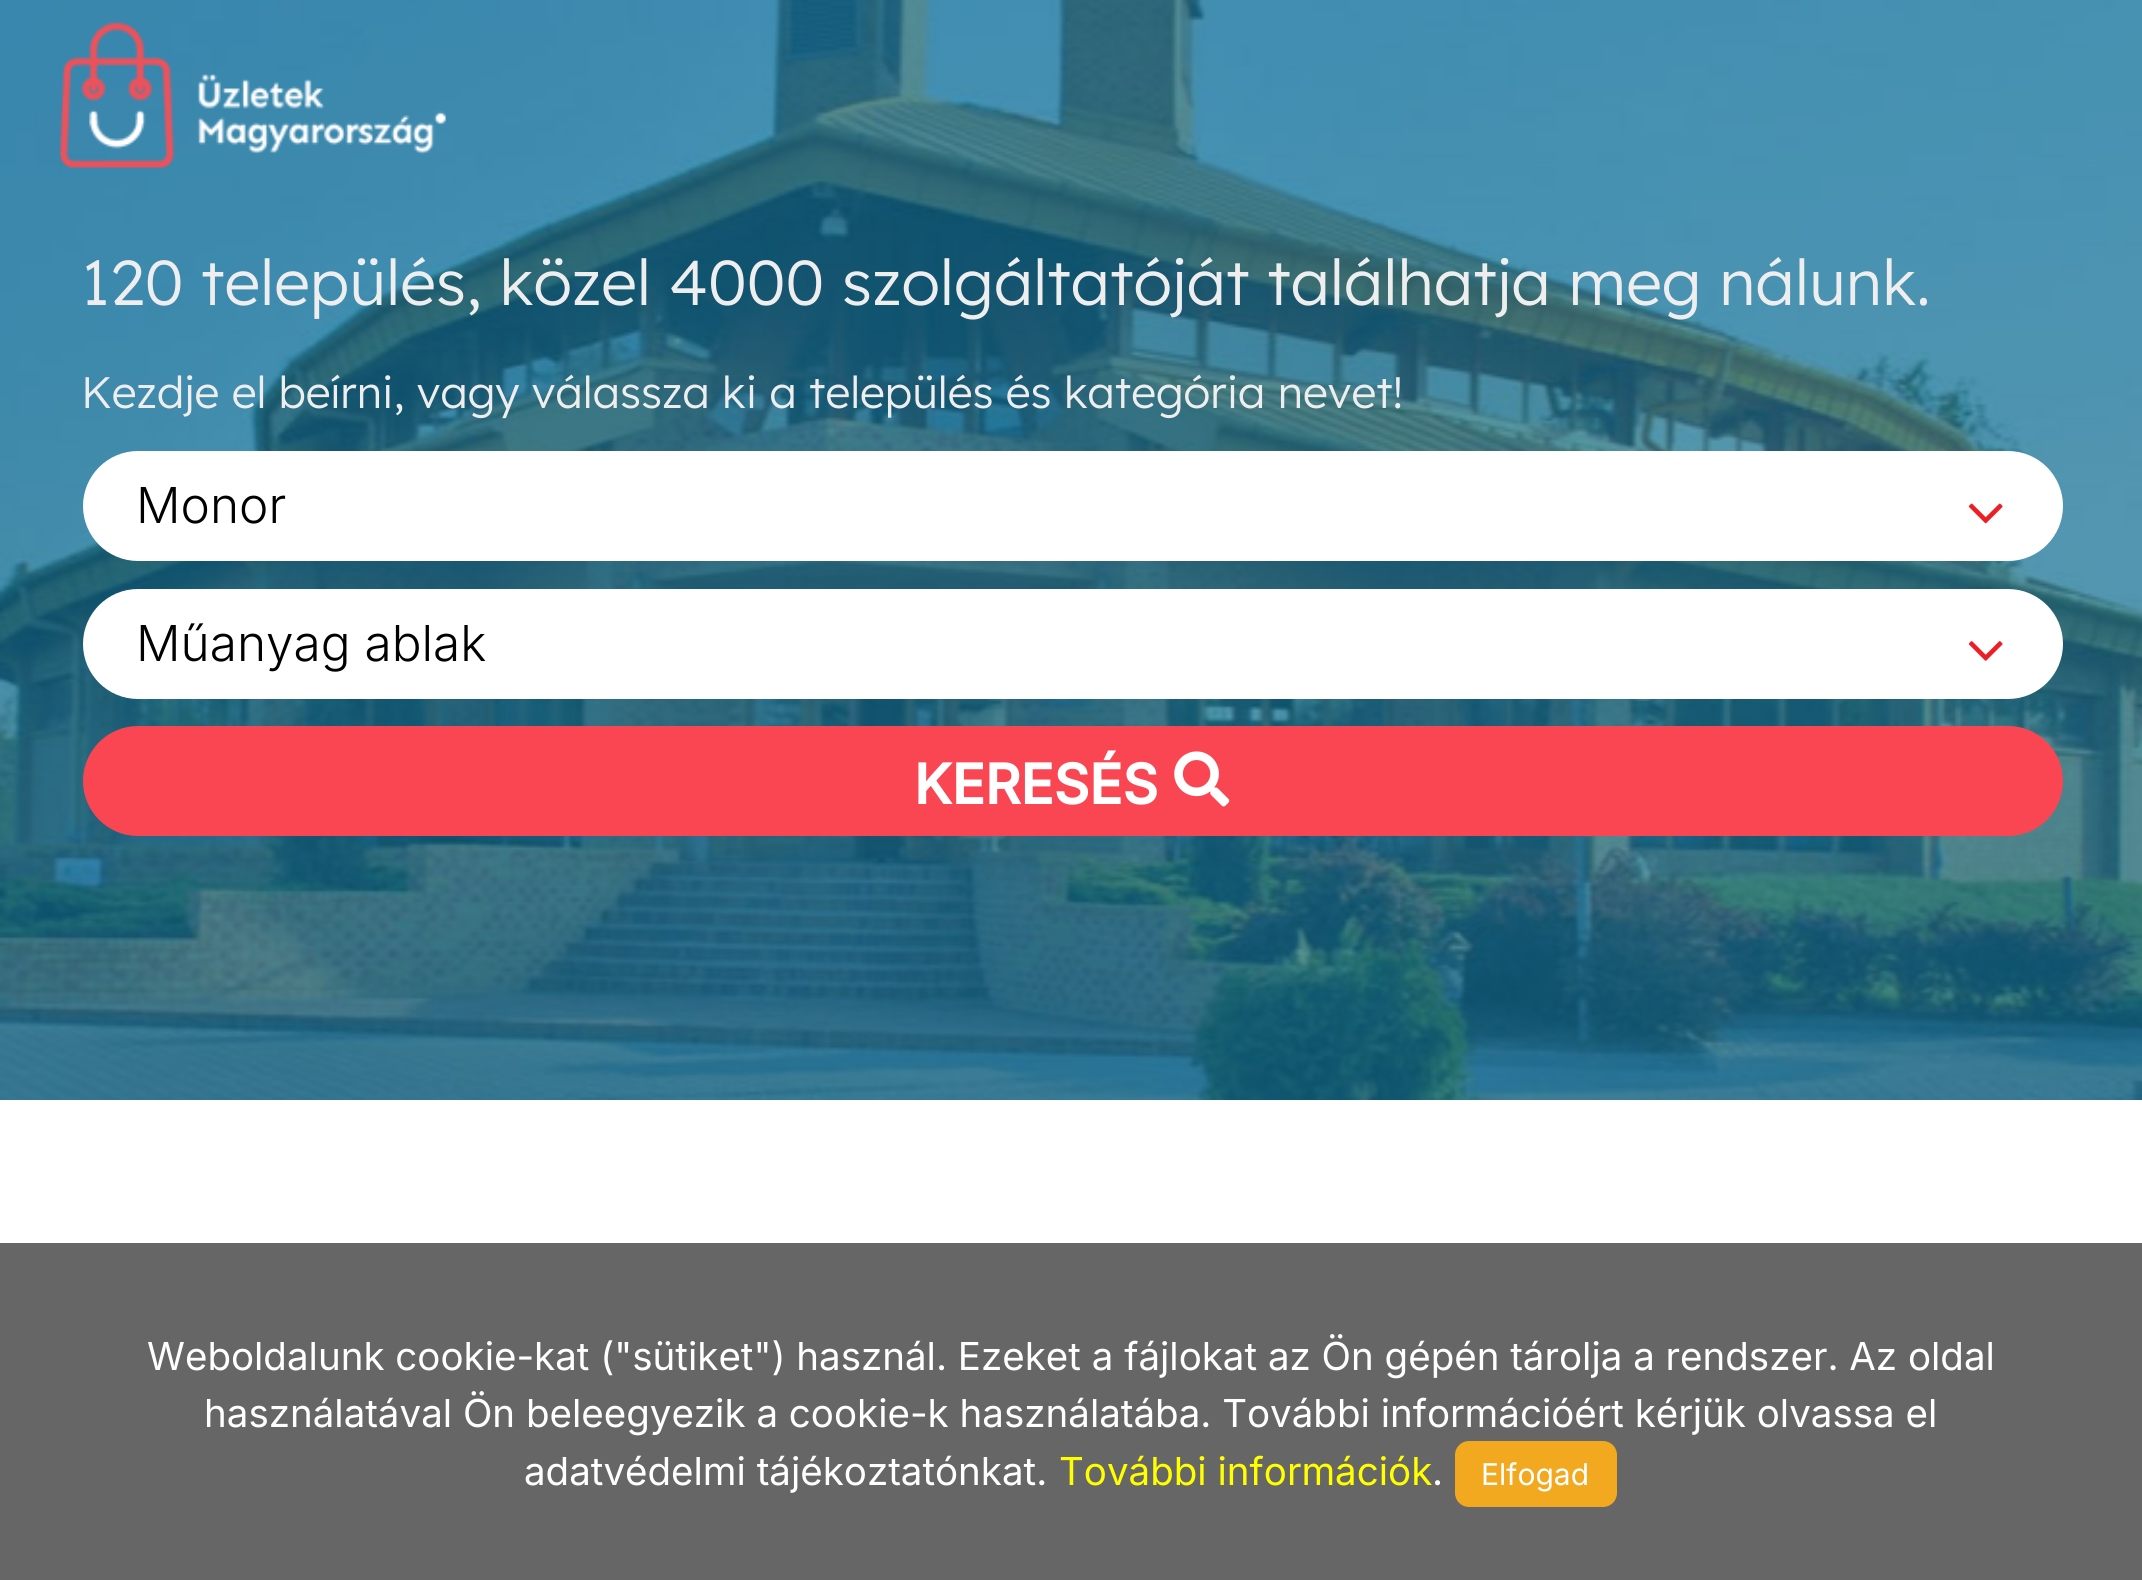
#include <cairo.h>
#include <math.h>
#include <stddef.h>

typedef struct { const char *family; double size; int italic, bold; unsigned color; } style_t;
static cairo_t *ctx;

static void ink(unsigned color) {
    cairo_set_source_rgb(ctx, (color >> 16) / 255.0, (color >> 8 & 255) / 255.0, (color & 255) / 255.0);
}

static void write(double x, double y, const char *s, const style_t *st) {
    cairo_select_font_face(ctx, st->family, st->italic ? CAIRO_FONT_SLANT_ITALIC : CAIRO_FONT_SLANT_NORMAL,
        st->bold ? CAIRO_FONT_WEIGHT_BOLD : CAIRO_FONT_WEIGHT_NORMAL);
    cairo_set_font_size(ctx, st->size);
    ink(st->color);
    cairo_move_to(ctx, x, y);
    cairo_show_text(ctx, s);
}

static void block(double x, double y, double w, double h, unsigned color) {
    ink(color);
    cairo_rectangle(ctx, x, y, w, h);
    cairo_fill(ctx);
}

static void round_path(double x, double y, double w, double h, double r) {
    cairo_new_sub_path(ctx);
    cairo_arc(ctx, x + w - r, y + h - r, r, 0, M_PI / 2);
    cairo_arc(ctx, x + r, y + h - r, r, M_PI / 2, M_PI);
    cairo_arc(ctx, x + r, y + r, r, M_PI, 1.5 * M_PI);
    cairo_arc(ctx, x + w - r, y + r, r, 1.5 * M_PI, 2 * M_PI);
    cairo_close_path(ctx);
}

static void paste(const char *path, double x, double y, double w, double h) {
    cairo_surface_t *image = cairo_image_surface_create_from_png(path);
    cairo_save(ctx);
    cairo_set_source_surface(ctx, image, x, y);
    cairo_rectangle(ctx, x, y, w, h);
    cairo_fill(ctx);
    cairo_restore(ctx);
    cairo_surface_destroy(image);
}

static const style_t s1 = {"Lexend Light", 63.25, 0, 0, 0xeeeeee};
static const style_t s2 = {"Lexend Light", 44, 0, 0, 0xeeeeee};
static const style_t s3 = {"Inter Light", 49.5, 0, 0, 0x000000};
static const style_t s4 = {"Inter", 55, 0, 1, 0xffffff};
static const style_t s5 = {"Inter", 38.5, 0, 0, 0xffffff};
static const style_t s6 = {"Inter", 38.5, 0, 0, 0xffff00};
static const style_t s7 = {"Inter", 30, 0, 0, 0xffffff};

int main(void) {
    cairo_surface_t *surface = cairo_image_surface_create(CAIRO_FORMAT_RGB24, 2142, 1580);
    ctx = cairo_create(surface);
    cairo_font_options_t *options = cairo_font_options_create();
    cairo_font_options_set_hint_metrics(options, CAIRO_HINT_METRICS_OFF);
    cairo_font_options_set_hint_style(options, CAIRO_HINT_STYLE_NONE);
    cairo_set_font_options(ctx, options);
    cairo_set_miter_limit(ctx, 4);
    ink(0xffffff);
    cairo_paint(ctx);
    paste("pic2.png", 0, 0, 2142, 1100);
    paste("pic1.png", 60, 22, 386, 146);
    write(81, 305, "120 település, közel 4000 szolgáltatóját találhatja meg nálunk.", &s1);
    write(81, 408, "Kezdje el beírni, vagy válassza ki a település és kategória nevet!", &s2);
    ink(0xffffff);
    round_path(83, 451, 1980, 110, 55);
    cairo_fill(ctx);
    write(136, 523, "Monor", &s3);
    paste("pic3.png", 1968, 503, 35, 21);
    ink(0xffffff);
    round_path(83, 589, 1980, 110, 55);
    cairo_fill(ctx);
    write(136, 661, "Műanyag ablak", &s3);
    paste("pic4.png", 1968, 641, 35, 20);
    ink(0xfa4652);
    round_path(83, 726, 1980, 110, 55);
    cairo_fill(ctx);
    write(914, 804, "KERESÉS", &s4);
    paste("pic5.png", 1174, 751, 56, 56);
    block(0, 1243, 2142, 337, 0x666666);
    write(147, 1370, "Weboldalunk cookie-kat (\"sütiket\") használ. Ezeket a fájlokat az Ön gépén tárolja a rendszer. Az oldal", &s5);
    write(204, 1427, "használatával Ön beleegyezik a cookie-k használatába. További információért kérjük olvassa el", &s5);
    write(524, 1485, "adatvédelmi tájékoztatónkat.", &s5);
    write(1059, 1485, "További információk", &s6);
    write(1432, 1485, ".", &s5);
    ink(0xf2a920);
    round_path(1455, 1441, 162, 66, 14);
    cairo_fill(ctx);
    write(1481, 1485, "Elfogad", &s7);
    cairo_surface_write_to_png(surface, "screenshot.png");
    cairo_font_options_destroy(options);
    cairo_destroy(ctx);
    cairo_surface_destroy(surface);
    return 0;
}
